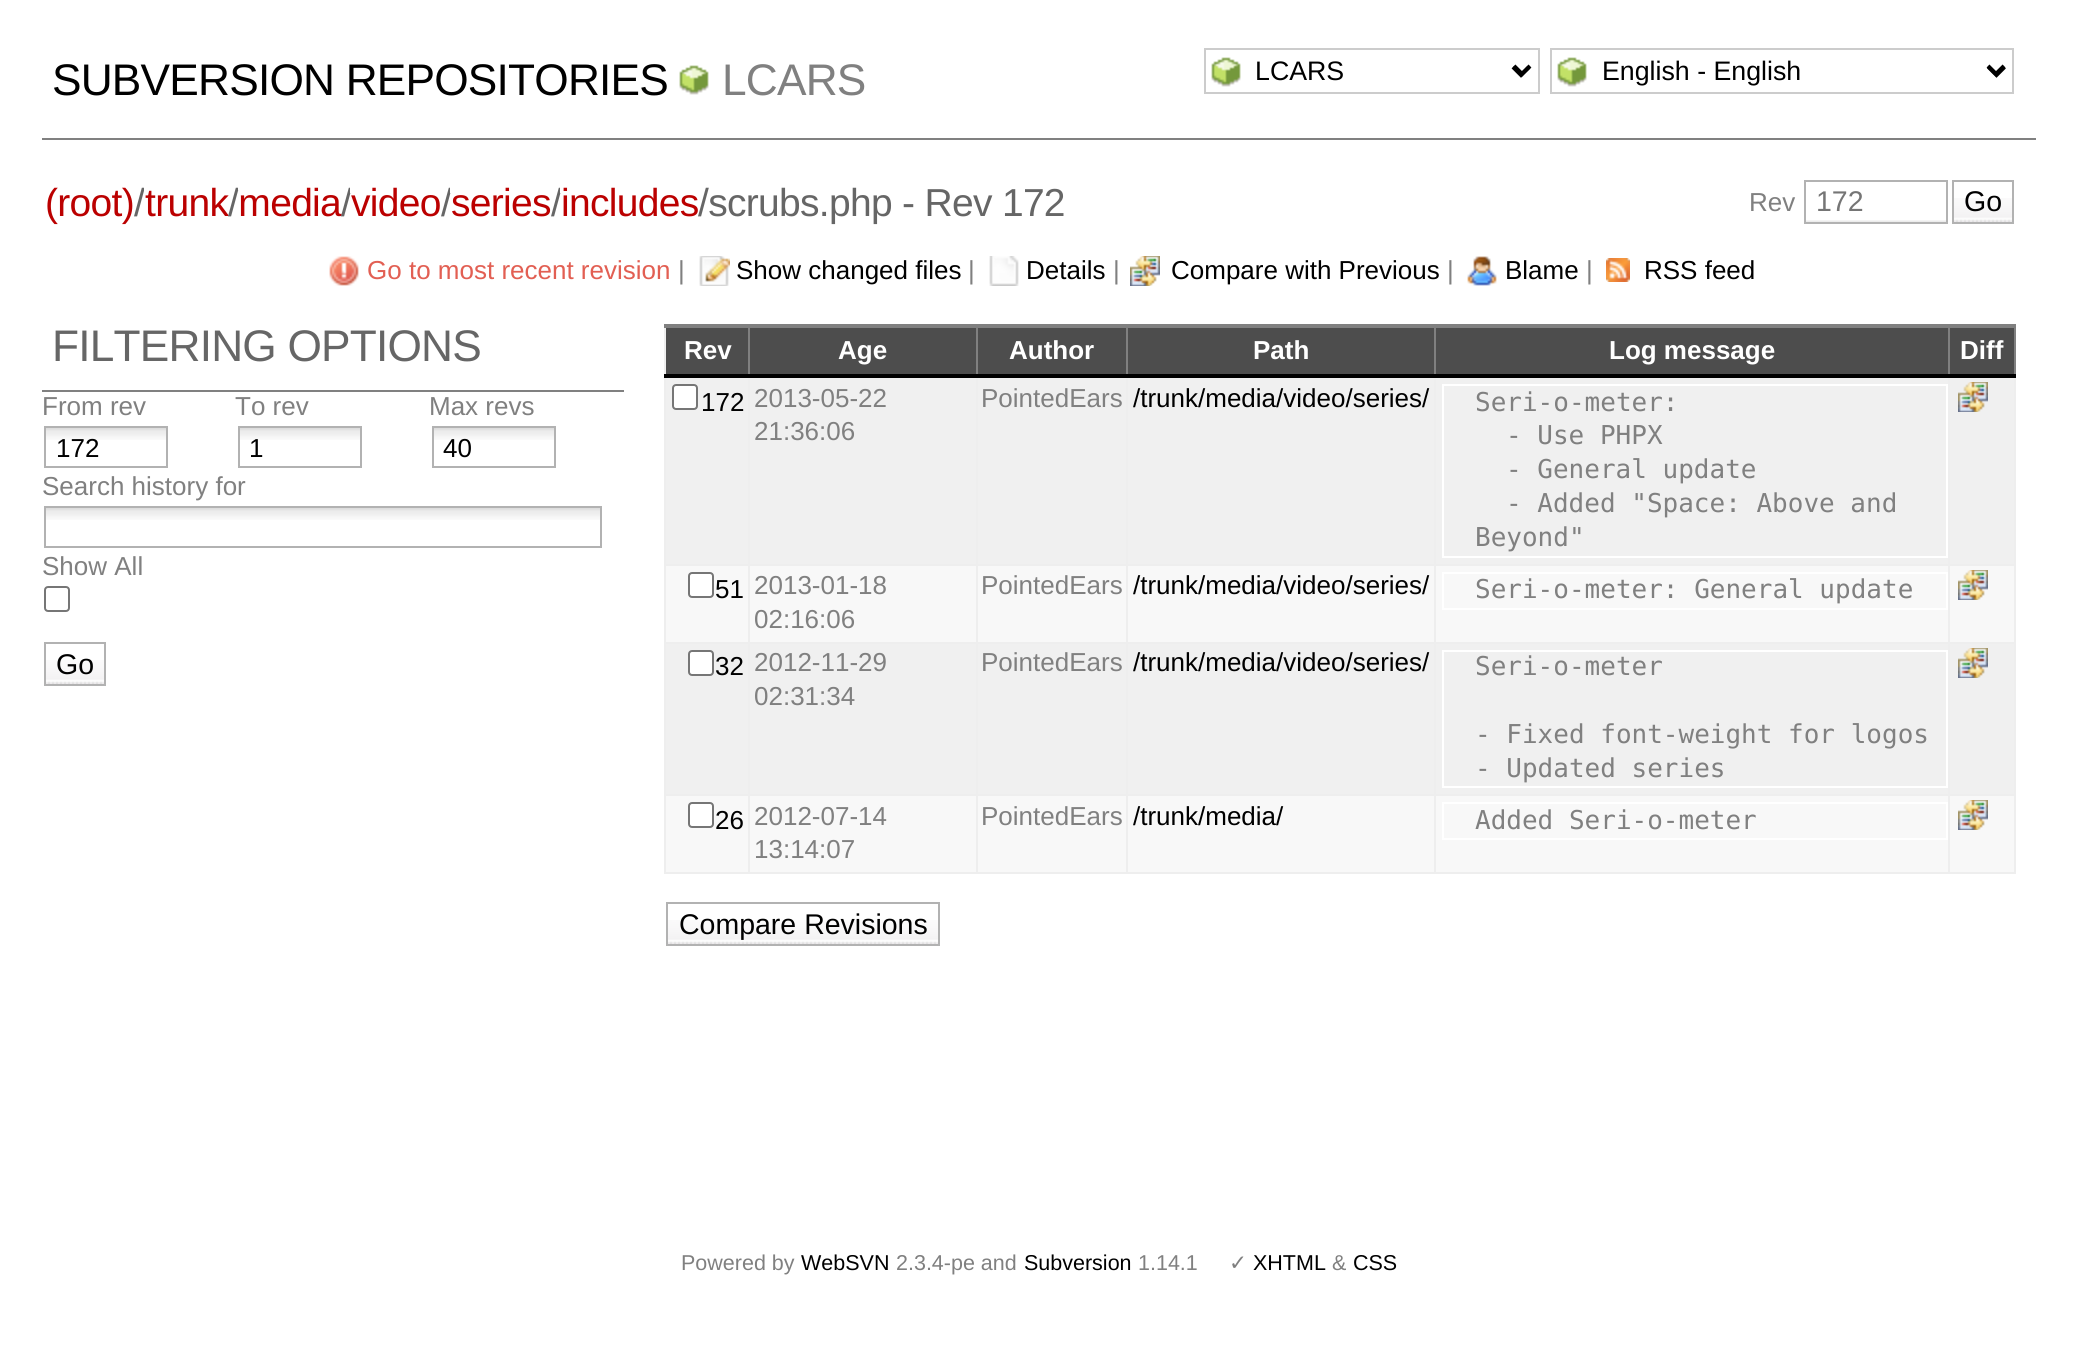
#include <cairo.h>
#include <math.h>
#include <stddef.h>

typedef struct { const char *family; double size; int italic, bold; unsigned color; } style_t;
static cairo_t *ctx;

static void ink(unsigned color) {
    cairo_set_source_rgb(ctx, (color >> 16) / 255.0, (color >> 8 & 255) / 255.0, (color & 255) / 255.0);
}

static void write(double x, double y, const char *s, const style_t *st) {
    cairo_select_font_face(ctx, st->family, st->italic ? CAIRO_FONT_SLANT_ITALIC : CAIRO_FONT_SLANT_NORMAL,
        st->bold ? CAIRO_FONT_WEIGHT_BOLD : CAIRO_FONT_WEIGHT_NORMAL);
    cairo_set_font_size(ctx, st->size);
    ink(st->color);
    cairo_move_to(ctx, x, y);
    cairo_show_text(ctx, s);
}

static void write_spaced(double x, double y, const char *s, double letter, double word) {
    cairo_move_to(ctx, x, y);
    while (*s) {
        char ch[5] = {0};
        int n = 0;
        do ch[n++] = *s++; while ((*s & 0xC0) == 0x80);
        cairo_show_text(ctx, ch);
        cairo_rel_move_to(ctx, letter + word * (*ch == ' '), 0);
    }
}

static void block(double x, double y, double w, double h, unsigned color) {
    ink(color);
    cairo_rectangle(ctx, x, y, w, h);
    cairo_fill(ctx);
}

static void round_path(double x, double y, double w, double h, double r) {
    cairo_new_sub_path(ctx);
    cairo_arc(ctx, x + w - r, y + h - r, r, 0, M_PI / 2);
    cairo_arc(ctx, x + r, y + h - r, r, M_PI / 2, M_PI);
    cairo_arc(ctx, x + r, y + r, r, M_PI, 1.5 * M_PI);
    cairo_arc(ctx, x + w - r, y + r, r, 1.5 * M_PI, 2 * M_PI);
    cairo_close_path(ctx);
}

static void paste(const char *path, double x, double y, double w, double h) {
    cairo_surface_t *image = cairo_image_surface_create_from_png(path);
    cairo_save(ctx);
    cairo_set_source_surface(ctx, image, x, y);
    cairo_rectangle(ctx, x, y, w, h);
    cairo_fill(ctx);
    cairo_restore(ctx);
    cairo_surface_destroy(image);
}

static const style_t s1 = {"Liberation Sans", 26.75, 0, 0, 0x000000};
static const style_t s2 = {"Liberation Sans", 26, 0, 0, 0x808080};
static const style_t s3 = {"Liberation Sans", 28.5, 0, 0, 0x757575};
static const style_t s4 = {"Liberation Sans", 28.5, 0, 0, 0x000000};
static const style_t s5 = {"Liberation Sans", 26, 0, 0, 0xe25f53};
static const style_t s6 = {"Liberation Sans", 26, 0, 0, 0x000000};
static const style_t s7 = {"Liberation Sans", 26, 0, 1, 0xffffff};
static const style_t s8 = {"DejaVu Sans Mono", 26, 0, 0, 0x808080};
static const style_t s9 = {"Liberation Sans", 21.5, 0, 0, 0x808080};
static const style_t s10 = {"Liberation Sans", 21.5, 0, 0, 0x000000};
static const style_t s11 = {"DejaVu Sans", 21.5, 0, 0, 0x808080};

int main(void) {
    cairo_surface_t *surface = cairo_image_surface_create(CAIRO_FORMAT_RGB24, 2078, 1352);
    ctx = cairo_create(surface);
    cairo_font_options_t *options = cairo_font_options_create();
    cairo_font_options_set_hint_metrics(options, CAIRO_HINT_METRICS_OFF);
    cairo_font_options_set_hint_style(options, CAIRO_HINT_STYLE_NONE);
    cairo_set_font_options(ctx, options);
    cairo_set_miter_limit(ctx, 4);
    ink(0xffffff);
    cairo_paint(ctx);
    block(42, 138, 1994, 2, 0x808080);
    cairo_select_font_face(ctx, "Liberation Sans", CAIRO_FONT_SLANT_NORMAL, CAIRO_FONT_WEIGHT_NORMAL);
    cairo_set_font_size(ctx, 44.25);
    ink(0x000000);
    write_spaced(52, 95, "SUBVERSION REPOSITORIES", -0.8, 0);
    paste("pic1.png", 679, 65, 30, 30);
    ink(0x808080);
    write_spaced(722, 95, "LCARS", -0.8, 0);
    paste("pic2.png", 1211, 57, 321, 30);
    cairo_rectangle(ctx, 1205, 49, 334, 44);
    ink(0xcccccc);
    cairo_stroke(ctx);
    cairo_new_path(ctx);
    cairo_move_to(ctx, 1513, 67);
    cairo_line_to(ctx, 1521, 75);
    cairo_line_to(ctx, 1529, 67);
    ink(0x000000);
    cairo_set_line_width(ctx, 4);
    cairo_stroke(ctx);
    write(1255, 80, "LCARS", &s1);
    paste("pic3.png", 1557, 57, 449, 30);
    cairo_rectangle(ctx, 1551, 49, 462, 44);
    ink(0xcccccc);
    cairo_set_line_width(ctx, 2);
    cairo_stroke(ctx);
    cairo_new_path(ctx);
    cairo_move_to(ctx, 1988.5, 67);
    cairo_line_to(ctx, 1996.5, 75);
    cairo_line_to(ctx, 2004.5, 67);
    ink(0x000000);
    cairo_set_line_width(ctx, 4);
    cairo_stroke(ctx);
    write(1602, 80, "English - English", &s1);
    cairo_set_font_size(ctx, 39);
    ink(0xbb0000);
    write_spaced(45, 216, "(root)", -0.7, 0);
    ink(0x666666);
    write_spaced(134, 216, "/", -0.7, 0);
    block(144, 187, 2, 5, 0xffffff);
    ink(0xbb0000);
    write_spaced(145, 216, "trunk media", -0.7, 0);
    ink(0x666666);
    write_spaced(228, 216, "/", -0.7, 0);
    block(238, 187, 1, 3, 0xffffff);
    ink(0x666666);
    write_spaced(341, 216, "/", -0.7, 0);
    block(350, 187, 2, 6, 0xffffff);
    ink(0xbb0000);
    write_spaced(351, 216, "video", -0.7, 0);
    ink(0x666666);
    write_spaced(441, 216, "/", -0.7, 0);
    block(450, 187, 2, 6, 0xffffff);
    ink(0xbb0000);
    write_spaced(451, 216, "series includes", -0.7, 0);
    ink(0x666666);
    write_spaced(551, 216, "/", -0.7, 0);
    block(560, 187, 2, 6, 0xffffff);
    ink(0x666666);
    write_spaced(698, 216, "/scrubs.php - Rev 172", -0.7, 0);
    write(1749, 211, "Rev", &s2);
    paste("pic4.png", 1806, 220, 140, 2);
    cairo_rectangle(ctx, 1805, 181, 142, 42);
    ink(0xb2b2b2);
    cairo_set_line_width(ctx, 2);
    cairo_stroke(ctx);
    write(1816, 211, "172", &s3);
    paste("pic5.png", 1954, 198, 58, 24);
    cairo_rectangle(ctx, 1953, 181, 60, 42);
    ink(0xb2b2b2);
    cairo_stroke(ctx);
    write(1964, 211, "Go", &s4);
    paste("pic6.png", 329, 256, 30, 30);
    write(367, 279, "Go to most recent revision", &s5);
    write(678, 279, "|", &s2);
    paste("pic7.png", 699, 256, 31, 30);
    write(736, 279, "Show changed files", &s6);
    write(968, 279, "|", &s2);
    paste("pic8.png", 989, 256, 30, 30);
    write(1026, 279, "Details", &s6);
    write(1113, 279, "|", &s2);
    paste("pic9.png", 1130, 256, 30, 30);
    write(1171, 279, "Compare with Previous", &s6);
    write(1447, 279, "|", &s2);
    paste("pic10.png", 1467, 256, 30, 30);
    write(1505, 279, "Blame", &s6);
    write(1586, 279, "|", &s2);
    paste("pic11.png", 1606, 258, 24, 24);
    write(1644, 279, "RSS feed", &s6);
    block(42, 390, 582, 2, 0x808080);
    cairo_set_font_size(ctx, 44.25);
    ink(0x666666);
    write_spaced(52, 361, "FILTERING OPTIONS", -0.8, 0);
    write(42, 415, "From rev", &s2);
    write(235, 415, "To rev", &s2);
    write(429, 415, "Max revs", &s2);
    paste("pic12.png", 46, 428, 120, 12);
    cairo_rectangle(ctx, 45, 427, 122, 40);
    ink(0xb2b2b2);
    cairo_stroke(ctx);
    write(56, 457, "172", &s6);
    paste("pic12.png", 240, 428, 120, 12);
    cairo_rectangle(ctx, 239, 427, 122, 40);
    ink(0xb2b2b2);
    cairo_stroke(ctx);
    write(249, 457, "1", &s6);
    paste("pic12.png", 434, 428, 120, 12);
    cairo_rectangle(ctx, 433, 427, 122, 40);
    ink(0xb2b2b2);
    cairo_stroke(ctx);
    write(443, 457, "40", &s6);
    write(42, 495, "Search history for", &s2);
    paste("pic13.png", 46, 508, 554, 12);
    cairo_rectangle(ctx, 45, 507, 556, 40);
    ink(0xb2b2b2);
    cairo_stroke(ctx);
    write(42, 575, "Show All", &s2);
    round_path(45, 587, 24, 24, 3);
    ink(0x767676);
    cairo_stroke(ctx);
    paste("pic5.png", 46, 660, 58, 24);
    cairo_rectangle(ctx, 45, 643, 60, 42);
    ink(0xb2b2b2);
    cairo_stroke(ctx);
    write(56, 674, "Go", &s4);
    block(666, 328, 1348, 46, 0x4d4d4d);
    block(1948, 564, 68, 2, 0xeeeeee);
    block(1948, 642, 68, 2, 0xeeeeee);
    block(1948, 794, 68, 2, 0xeeeeee);
    block(2014, 794, 2, 80, 0xeeeeee);
    block(1948, 872, 68, 2, 0xeeeeee);
    block(1948, 794, 2, 80, 0xeeeeee);
    block(1434, 794, 516, 2, 0xeeeeee);
    block(1948, 642, 2, 154, 0xeeeeee);
    block(1434, 642, 516, 2, 0xeeeeee);
    block(1948, 564, 2, 80, 0xeeeeee);
    block(1434, 564, 516, 2, 0xeeeeee);
    block(1434, 872, 516, 2, 0xeeeeee);
    block(1434, 794, 2, 80, 0xeeeeee);
    block(1126, 794, 310, 2, 0xeeeeee);
    block(1434, 642, 2, 154, 0xeeeeee);
    block(1126, 642, 310, 2, 0xeeeeee);
    block(1434, 564, 2, 80, 0xeeeeee);
    block(1126, 564, 310, 2, 0xeeeeee);
    block(1126, 872, 310, 2, 0xeeeeee);
    block(1126, 794, 2, 80, 0xeeeeee);
    block(976, 794, 152, 2, 0xeeeeee);
    block(1126, 642, 2, 154, 0xeeeeee);
    block(976, 642, 152, 2, 0xeeeeee);
    block(1126, 564, 2, 80, 0xeeeeee);
    block(976, 564, 152, 2, 0xeeeeee);
    block(976, 872, 152, 2, 0xeeeeee);
    block(976, 794, 2, 80, 0xeeeeee);
    block(748, 794, 230, 2, 0xeeeeee);
    block(976, 642, 2, 154, 0xeeeeee);
    block(748, 642, 230, 2, 0xeeeeee);
    block(976, 564, 2, 80, 0xeeeeee);
    block(748, 564, 230, 2, 0xeeeeee);
    block(748, 872, 230, 2, 0xeeeeee);
    block(748, 794, 2, 80, 0xeeeeee);
    block(664, 794, 86, 2, 0xeeeeee);
    block(748, 642, 2, 154, 0xeeeeee);
    block(664, 642, 86, 2, 0xeeeeee);
    block(748, 564, 2, 80, 0xeeeeee);
    block(664, 564, 86, 2, 0xeeeeee);
    block(748, 376, 2, 190, 0xeeeeee);
    block(748, 326, 2, 52, 0x808080);
    write(684, 359, "Rev", &s7);
    block(976, 376, 2, 190, 0xeeeeee);
    block(976, 326, 2, 52, 0x808080);
    write(838, 359, "Age", &s7);
    block(1126, 376, 2, 190, 0xeeeeee);
    block(1126, 326, 2, 52, 0x808080);
    write(1009, 359, "Author", &s7);
    block(1434, 376, 2, 190, 0xeeeeee);
    block(1434, 326, 2, 52, 0x808080);
    write(1253, 359, "Path", &s7);
    block(1948, 376, 2, 190, 0xeeeeee);
    block(1948, 326, 2, 52, 0x808080);
    write(1609, 359, "Log message", &s7);
    block(2014, 642, 2, 154, 0xeeeeee);
    block(2014, 376, 2, 268, 0xeeeeee);
    block(2014, 326, 2, 52, 0x808080);
    block(664, 872, 86, 2, 0xeeeeee);
    block(664, 794, 2, 80, 0xeeeeee);
    block(664, 642, 2, 154, 0xeeeeee);
    block(664, 326, 2, 318, 0xeeeeee);
    block(664, 324, 1352, 4, 0x808080);
    block(664, 374, 1352, 4, 0x000000);
    write(1960, 359, "Diff", &s7);
    block(666, 378, 82, 186, 0xf0f0f0);
    ink(0xffffff);
    round_path(673, 385, 24, 24, 3);
    cairo_fill_preserve(ctx);
    ink(0x767676);
    cairo_stroke(ctx);
    write(701, 411, "172", &s6);
    block(750, 378, 226, 186, 0xf0f0f0);
    write(754, 407, "2013-05-22", &s2);
    write(754, 440, "21:36:06", &s2);
    block(978, 378, 148, 186, 0xf0f0f0);
    write(981, 407, "PointedEars", &s2);
    block(1128, 378, 306, 186, 0xf0f0f0);
    write(1133, 407, "/trunk/media/video/series/", &s6);
    block(1436, 378, 512, 186, 0xf0f0f0);
    cairo_rectangle(ctx, 1443, 385, 504, 172);
    ink(0xffffff);
    cairo_stroke(ctx);
    write(1475, 411, "Seri-o-meter:", &s8);
    write(1506, 444, "- Use PHPX", &s8);
    write(1506, 478, "- General update", &s8);
    write(1506, 512, "- Added \"Space: Above and", &s8);
    write(1475, 546, "Beyond\"", &s8);
    block(1950, 378, 64, 186, 0xf0f0f0);
    paste("pic14.png", 1958, 382, 30, 30);
    block(666, 566, 82, 76, 0xf8f8f8);
    ink(0xffffff);
    round_path(689, 573, 24, 24, 3);
    cairo_fill_preserve(ctx);
    ink(0x767676);
    cairo_stroke(ctx);
    write(715, 598, "51", &s6);
    block(750, 566, 226, 76, 0xf8f8f8);
    write(754, 594, "2013-01-18", &s2);
    write(754, 628, "02:16:06", &s2);
    block(978, 566, 148, 76, 0xf8f8f8);
    write(981, 594, "PointedEars", &s2);
    block(1128, 566, 306, 76, 0xf8f8f8);
    write(1133, 594, "/trunk/media/video/series/", &s6);
    block(1436, 566, 512, 76, 0xf8f8f8);
    cairo_rectangle(ctx, 1443, 573, 504, 36);
    ink(0xffffff);
    cairo_stroke(ctx);
    write(1475, 598, "Seri-o-meter: General update", &s8);
    block(1950, 566, 64, 76, 0xf8f8f8);
    paste("pic15.png", 1958, 570, 30, 30);
    block(666, 644, 82, 150, 0xf0f0f0);
    ink(0xffffff);
    round_path(689, 651, 24, 24, 3);
    cairo_fill_preserve(ctx);
    ink(0x767676);
    cairo_stroke(ctx);
    write(715, 675, "32", &s6);
    block(750, 644, 226, 150, 0xf0f0f0);
    write(754, 671, "2012-11-29", &s2);
    write(754, 705, "02:31:34", &s2);
    block(978, 644, 148, 150, 0xf0f0f0);
    write(981, 671, "PointedEars", &s2);
    block(1128, 644, 306, 150, 0xf0f0f0);
    write(1133, 671, "/trunk/media/video/series/", &s6);
    block(1436, 644, 512, 150, 0xf0f0f0);
    cairo_rectangle(ctx, 1443, 651, 504, 136);
    ink(0xffffff);
    cairo_stroke(ctx);
    write(1475, 675, "Seri-o-meter", &s8);
    write(1475, 743, "- Fixed font-weight for logos", &s8);
    write(1475, 777, "- Updated series", &s8);
    block(1950, 644, 64, 150, 0xf0f0f0);
    paste("pic14.png", 1958, 648, 30, 30);
    block(666, 796, 82, 76, 0xf8f8f8);
    ink(0xffffff);
    round_path(689, 803, 24, 24, 3);
    cairo_fill_preserve(ctx);
    ink(0x767676);
    cairo_stroke(ctx);
    write(715, 829, "26", &s6);
    block(750, 796, 226, 76, 0xf8f8f8);
    write(754, 825, "2012-07-14", &s2);
    write(754, 858, "13:14:07", &s2);
    block(978, 796, 148, 76, 0xf8f8f8);
    write(981, 825, "PointedEars", &s2);
    block(1128, 796, 306, 76, 0xf8f8f8);
    write(1133, 825, "/trunk/media/", &s6);
    block(1436, 796, 512, 76, 0xf8f8f8);
    cairo_rectangle(ctx, 1443, 803, 504, 36);
    ink(0xffffff);
    cairo_stroke(ctx);
    write(1475, 829, "Added Seri-o-meter", &s8);
    block(1950, 796, 64, 76, 0xf8f8f8);
    paste("pic15.png", 1958, 800, 30, 30);
    paste("pic16.png", 668, 920, 270, 24);
    cairo_rectangle(ctx, 667, 903, 272, 42);
    ink(0xb2b2b2);
    cairo_stroke(ctx);
    write(679, 934, "Compare Revisions", &s4);
    write(681, 1270, "Powered by", &s9);
    write(801, 1270, "WebSVN", &s10);
    write(896, 1270, "2.3.4-pe and", &s9);
    write(1024, 1270, "Subversion", &s10);
    write(1138, 1270, "1.14.1", &s9);
    write(1229, 1270, "✓", &s11);
    write(1253, 1270, "XHTML", &s10);
    write(1332, 1270, "&", &s9);
    write(1353, 1270, "CSS", &s10);
    cairo_surface_write_to_png(surface, "screenshot.png");
    cairo_font_options_destroy(options);
    cairo_destroy(ctx);
    cairo_surface_destroy(surface);
    return 0;
}
